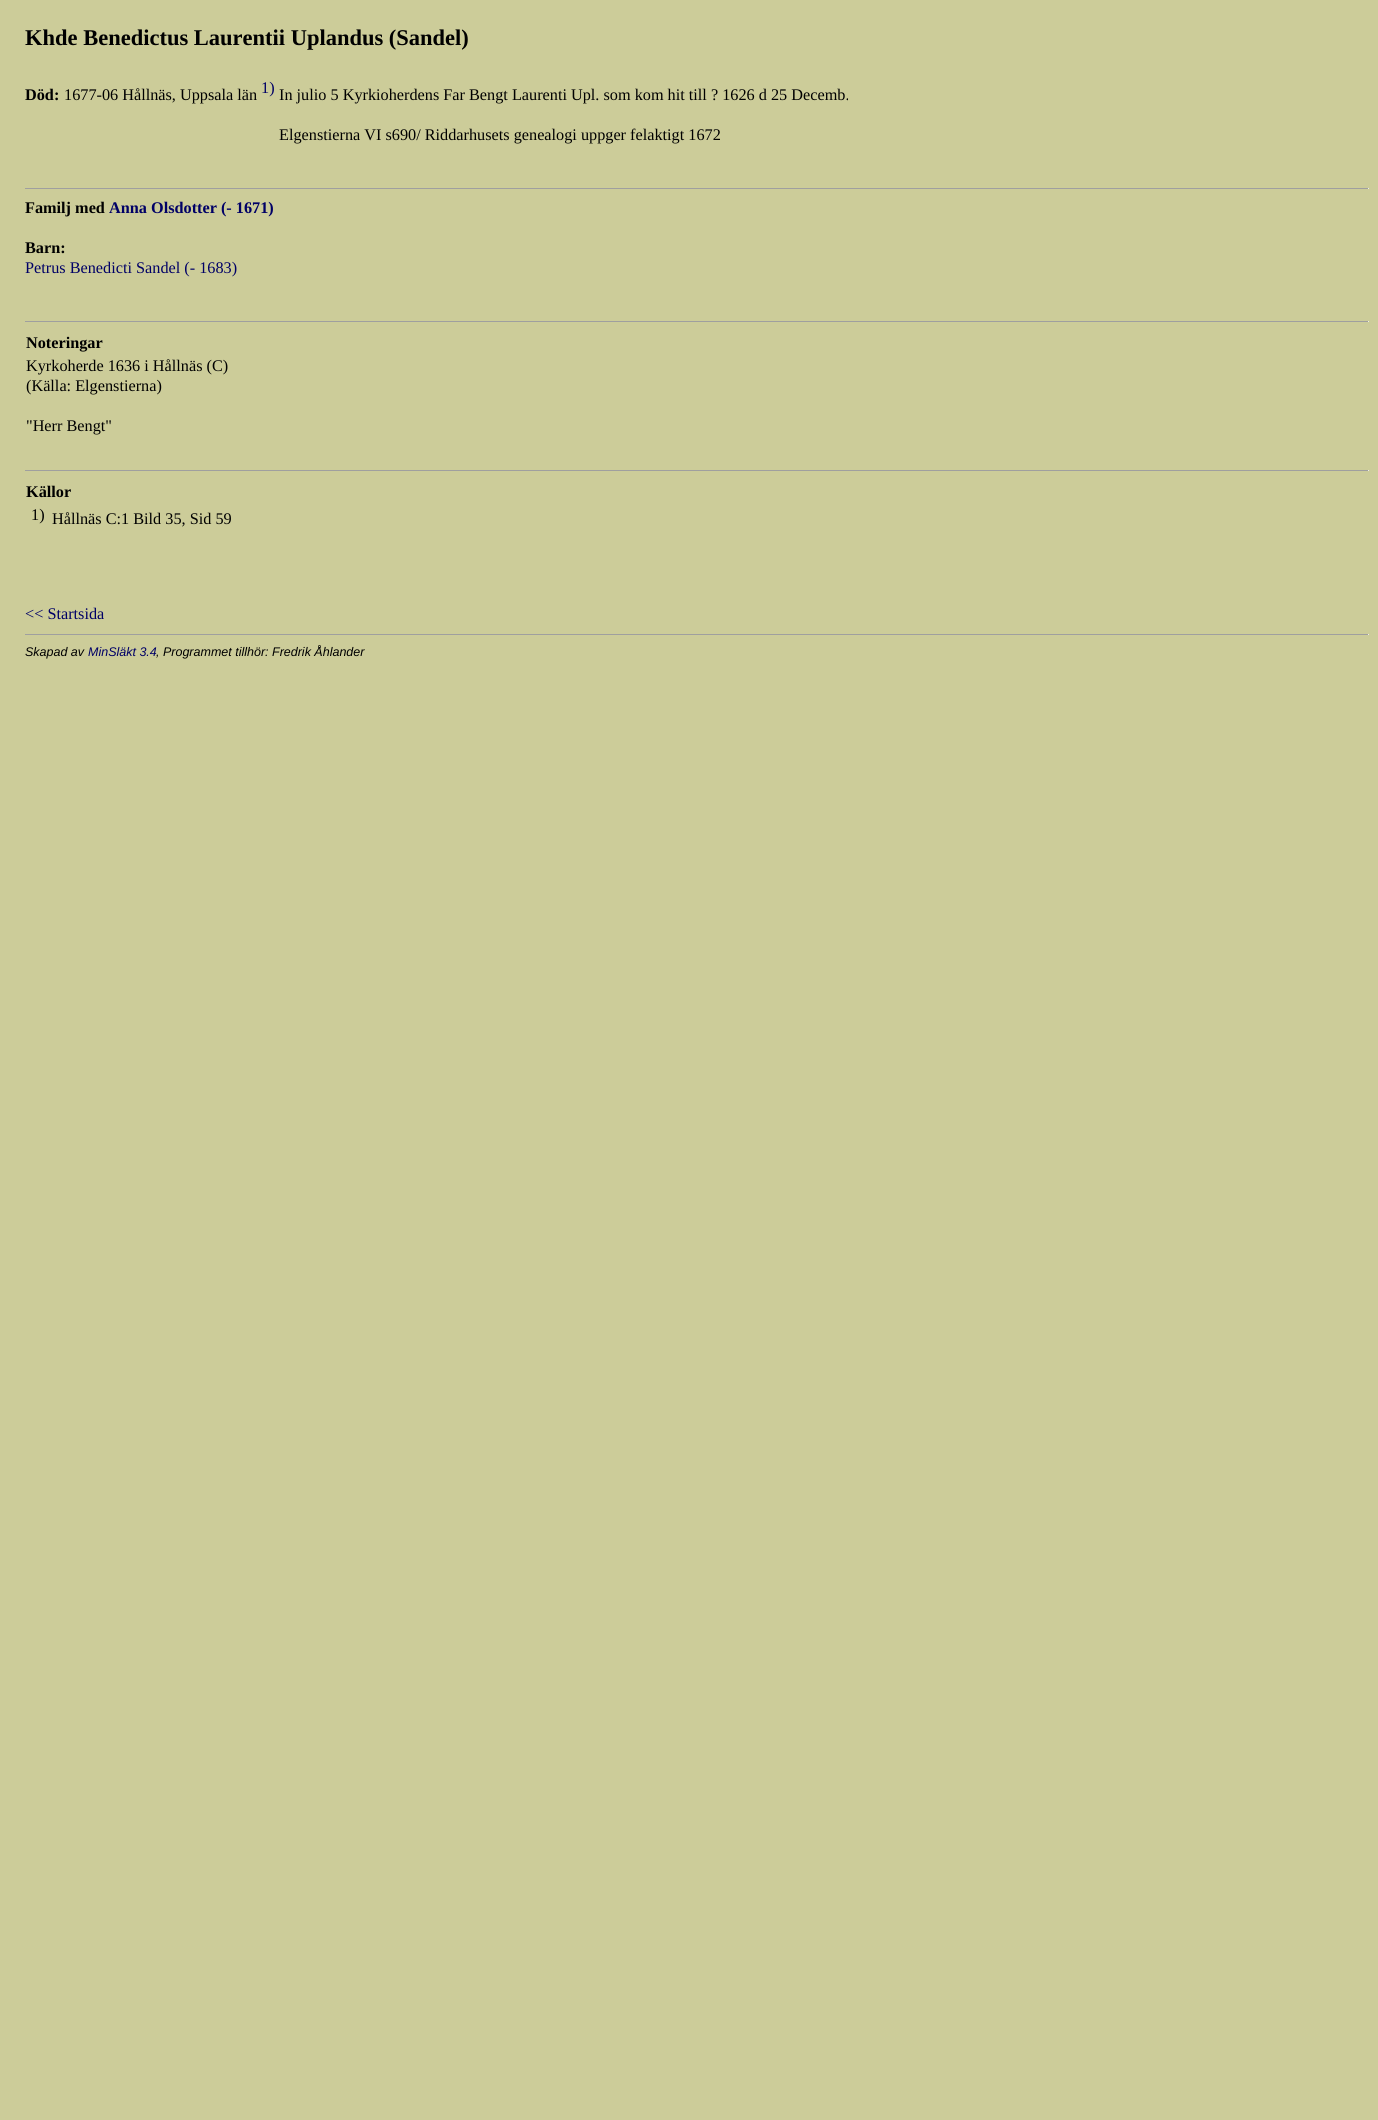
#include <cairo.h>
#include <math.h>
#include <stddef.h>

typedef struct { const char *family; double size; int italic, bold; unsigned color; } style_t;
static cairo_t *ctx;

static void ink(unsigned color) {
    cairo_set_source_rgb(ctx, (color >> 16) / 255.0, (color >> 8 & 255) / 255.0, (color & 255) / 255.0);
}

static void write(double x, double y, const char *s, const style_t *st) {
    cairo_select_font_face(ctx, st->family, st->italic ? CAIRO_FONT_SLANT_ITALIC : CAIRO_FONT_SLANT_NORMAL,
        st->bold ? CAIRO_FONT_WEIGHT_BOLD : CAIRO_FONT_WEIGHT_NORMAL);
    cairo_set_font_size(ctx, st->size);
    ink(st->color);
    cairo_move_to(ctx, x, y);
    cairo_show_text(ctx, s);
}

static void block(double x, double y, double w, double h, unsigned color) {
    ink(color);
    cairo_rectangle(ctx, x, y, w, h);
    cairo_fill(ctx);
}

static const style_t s1 = {"Liberation Serif", 22.5, 0, 1, 0x000000};
static const style_t s2 = {"Liberation Serif", 16.25, 0, 1, 0x000000};
static const style_t s3 = {"Liberation Serif", 16.25, 0, 0, 0x000000};
static const style_t s4 = {"Liberation Serif", 16.25, 0, 0, 0x000066};
static const style_t s5 = {"Liberation Serif", 16.25, 0, 1, 0x000066};
static const style_t s6 = {"Liberation Sans", 12.5, 1, 0, 0x000000};
static const style_t s7 = {"Liberation Sans", 12.5, 1, 0, 0x000066};

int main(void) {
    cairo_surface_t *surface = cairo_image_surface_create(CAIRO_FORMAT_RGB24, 1378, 2120);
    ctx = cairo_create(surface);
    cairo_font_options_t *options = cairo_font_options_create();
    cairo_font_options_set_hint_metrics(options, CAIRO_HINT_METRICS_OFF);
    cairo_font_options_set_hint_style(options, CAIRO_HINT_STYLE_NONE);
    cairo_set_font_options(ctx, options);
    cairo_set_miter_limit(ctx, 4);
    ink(0xcccc99);
    cairo_paint(ctx);
    write(25, 45, "Khde Benedictus Laurentii Uplandus (Sandel)", &s1);
    write(25, 100, "Död:", &s2);
    write(64, 100, "1677-06 Hållnäs, Uppsala län", &s3);
    write(261, 93, "1)", &s4);
    write(279, 100, "In julio 5 Kyrkioherdens Far Bengt Laurenti Upl. som kom hit till ? 1626 d 25 Decemb.", &s3);
    write(279, 140, "Elgenstierna VI s690/ Riddarhusets genealogi uppger felaktigt 1672", &s3);
    block(25, 188, 1344, 1, 0x9f9f9f);
    block(1368, 188, 1, 1, 0xeeeeee);
    write(25, 213, "Familj med", &s2);
    write(109, 213, "Anna Olsdotter (- 1671)", &s5);
    write(25, 253, "Barn:", &s2);
    write(25, 273, "Petrus Benedicti Sandel (- 1683)", &s4);
    block(25, 321, 1344, 1, 0x9f9f9f);
    block(1368, 321, 1, 1, 0xeeeeee);
    write(26, 348, "Noteringar", &s2);
    write(26, 371, "Kyrkoherde 1636 i Hållnäs (C)", &s3);
    write(26, 391, "(Källa: Elgenstierna)", &s3);
    write(26, 431, "\"Herr Bengt\"", &s3);
    block(25, 470, 1344, 1, 0x9f9f9f);
    block(1368, 470, 1, 1, 0xeeeeee);
    write(26, 497, "Källor", &s2);
    write(31, 520, "1)", &s3);
    write(52, 524, "Hållnäs C:1 Bild 35, Sid 59", &s3);
    write(25, 619, "<< Startsida", &s4);
    block(25, 634, 1344, 1, 0x9f9f9f);
    block(1368, 634, 1, 1, 0xeeeeee);
    write(25, 656, "Skapad av", &s6);
    write(88, 656, "MinSläkt 3.4", &s7);
    write(156, 656, ", Programmet tillhör: Fredrik Åhlander", &s6);
    cairo_surface_write_to_png(surface, "screenshot.png");
    cairo_font_options_destroy(options);
    cairo_destroy(ctx);
    cairo_surface_destroy(surface);
    return 0;
}
